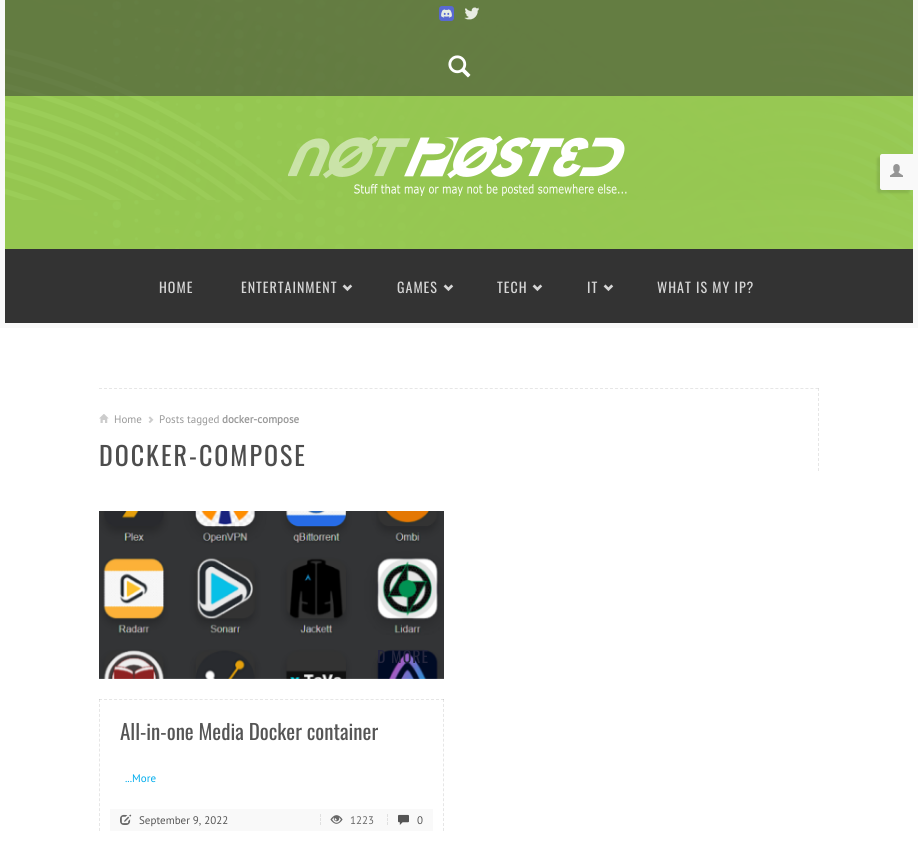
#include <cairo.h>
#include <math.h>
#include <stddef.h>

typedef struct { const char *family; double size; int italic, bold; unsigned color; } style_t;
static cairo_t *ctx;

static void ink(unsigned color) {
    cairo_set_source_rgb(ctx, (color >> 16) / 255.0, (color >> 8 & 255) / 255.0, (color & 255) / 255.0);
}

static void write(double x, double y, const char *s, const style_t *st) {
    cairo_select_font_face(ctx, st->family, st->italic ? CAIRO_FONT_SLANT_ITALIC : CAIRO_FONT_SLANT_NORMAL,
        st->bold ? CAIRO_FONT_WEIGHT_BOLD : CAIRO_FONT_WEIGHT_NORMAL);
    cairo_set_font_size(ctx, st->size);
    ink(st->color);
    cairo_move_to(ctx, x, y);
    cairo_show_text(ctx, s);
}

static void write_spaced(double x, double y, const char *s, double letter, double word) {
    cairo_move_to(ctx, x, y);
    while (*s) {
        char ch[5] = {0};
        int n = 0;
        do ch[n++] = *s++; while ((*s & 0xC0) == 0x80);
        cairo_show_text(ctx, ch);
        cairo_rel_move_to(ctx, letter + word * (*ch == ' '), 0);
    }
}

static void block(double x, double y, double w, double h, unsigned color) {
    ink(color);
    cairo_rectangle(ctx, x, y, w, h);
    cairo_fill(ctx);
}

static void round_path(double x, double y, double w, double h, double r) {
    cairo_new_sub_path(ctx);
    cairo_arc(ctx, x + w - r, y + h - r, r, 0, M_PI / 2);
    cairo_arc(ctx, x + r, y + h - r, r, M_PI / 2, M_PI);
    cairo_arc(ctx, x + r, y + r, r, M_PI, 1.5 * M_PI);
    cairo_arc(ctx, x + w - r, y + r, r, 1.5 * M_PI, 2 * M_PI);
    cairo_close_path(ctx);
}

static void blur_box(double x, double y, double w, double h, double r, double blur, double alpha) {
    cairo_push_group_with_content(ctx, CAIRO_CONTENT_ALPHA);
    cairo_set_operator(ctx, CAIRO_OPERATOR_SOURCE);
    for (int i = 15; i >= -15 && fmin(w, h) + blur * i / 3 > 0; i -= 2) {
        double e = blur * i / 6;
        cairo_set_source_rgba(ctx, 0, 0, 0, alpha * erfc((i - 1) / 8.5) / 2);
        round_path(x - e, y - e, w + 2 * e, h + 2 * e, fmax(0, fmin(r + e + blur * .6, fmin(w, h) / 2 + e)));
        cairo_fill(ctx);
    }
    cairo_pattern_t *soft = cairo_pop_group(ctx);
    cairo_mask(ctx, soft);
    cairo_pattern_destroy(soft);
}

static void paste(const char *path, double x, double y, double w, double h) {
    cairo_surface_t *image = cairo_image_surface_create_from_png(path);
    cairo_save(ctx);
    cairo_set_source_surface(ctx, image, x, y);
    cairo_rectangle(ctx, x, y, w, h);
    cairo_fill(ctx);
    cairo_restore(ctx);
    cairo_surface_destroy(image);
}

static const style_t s1 = {"PT Sans", 11, 0, 0, 0x999999};
static const style_t s2 = {"PT Sans", 11, 0, 1, 0x999999};
static const style_t s3 = {"Oswald", 21, 0, 0, 0x555555};
static const style_t s4 = {"PT Sans", 11, 0, 0, 0x00aced};
static const style_t s5 = {"PT Sans", 11, 0, 0, 0x555555};
static const style_t s6 = {"PT Sans", 11, 0, 0, 0x686868};

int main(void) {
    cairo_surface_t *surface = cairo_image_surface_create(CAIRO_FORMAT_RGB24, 918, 857);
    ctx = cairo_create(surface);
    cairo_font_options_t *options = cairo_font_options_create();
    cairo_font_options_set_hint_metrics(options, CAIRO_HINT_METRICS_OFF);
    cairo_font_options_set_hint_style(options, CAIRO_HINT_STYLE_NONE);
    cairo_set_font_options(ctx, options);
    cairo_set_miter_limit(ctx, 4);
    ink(0xffffff);
    cairo_paint(ctx);
    block(0, 0, 918, 328, 0xf9f9f9);
    paste("pic1.png", 5, 0, 908, 249);
    cairo_set_source_rgba(ctx, 0.2, 0.2, 0.2, 0.5);
    cairo_rectangle(ctx, 5, 0, 908, 96);
    cairo_fill(ctx);
    paste("pic2.png", 439, 6, 15, 15);
    paste("pic3.png", 464, 7, 15, 13);
    paste("pic4.png", 448, 55, 23, 23);
    paste("pic5.png", 288, 136, 339, 60);
    ink(0x000000);
    blur_box(877, 157, 33, 36, 2, 1, 0.1);
    ink(0xf9f9f9);
    cairo_new_path(ctx);
    cairo_move_to(ctx, 882, 154);
    cairo_line_to(ctx, 913, 154);
    cairo_line_to(ctx, 913, 190);
    cairo_line_to(ctx, 882, 190);
    cairo_curve_to(ctx, 881, 190, 880, 189, 880, 188);
    cairo_line_to(ctx, 880, 156);
    cairo_curve_to(ctx, 880, 155, 881, 154, 882, 154);
    cairo_close_path(ctx);
    cairo_fill(ctx);
    paste("pic6.png", 890, 164, 13, 13);
    block(5, 249, 908, 74, 0x333333);
    cairo_select_font_face(ctx, "Oswald", CAIRO_FONT_SLANT_NORMAL, CAIRO_FONT_WEIGHT_NORMAL);
    cairo_set_font_size(ctx, 14);
    ink(0xd6d6d6);
    write_spaced(159, 293, "HOME", 1, 0);
    write_spaced(241, 293, "ENTERTAINMENT", 1, 0);
    paste("pic7.png", 342, 284, 11, 8);
    write_spaced(397, 293, "GAMES", 1, 0);
    paste("pic7.png", 443, 284, 11, 8);
    write_spaced(497, 293, "TECH", 1, 0);
    paste("pic7.png", 532, 284, 11, 8);
    write_spaced(587, 293, "IT", 1, 0);
    paste("pic7.png", 603, 284, 11, 8);
    write_spaced(657, 293, "WHAT IS MY IP?", 1, 0);
    cairo_new_path(ctx);
    cairo_move_to(ctx, 99, 388.5);
    cairo_line_to(ctx, 819, 388.5);
    ink(0xe6e6e6);
    cairo_set_line_width(ctx, 1);
    cairo_set_dash(ctx, (double[]){3, 2.01}, 2, 0);
    cairo_stroke(ctx);
    cairo_new_path(ctx);
    cairo_move_to(ctx, 818.5, 388);
    cairo_line_to(ctx, 818.5, 471);
    cairo_set_source_rgba(ctx, 0, 0, 0, 0.1);
    cairo_set_dash(ctx, (double[]){3, 2}, 2, 0);
    cairo_stroke(ctx);
    paste("pic8.png", 99, 414, 10, 9);
    write(114, 423, "Home", &s1);
    paste("pic9.png", 148, 416, 6, 7);
    write(159, 423, "Posts tagged", &s1);
    write(222, 423, "docker-compose", &s2);
    cairo_select_font_face(ctx, "Oswald", CAIRO_FONT_SLANT_NORMAL, CAIRO_FONT_WEIGHT_NORMAL);
    cairo_set_font_size(ctx, 26);
    ink(0x4d4d4d);
    write_spaced(99, 466, "DOCKER-COMPOSE", 2, 0);
    paste("pic10.png", 99, 511, 345, 168);
    cairo_set_font_size(ctx, 16);
    ink(0x25263d);
    write_spaced(377, 663, "D MORE", 1, 0);
    cairo_new_path(ctx);
    cairo_move_to(ctx, 99, 699.5);
    cairo_line_to(ctx, 444, 699.5);
    ink(0xe6e6e6);
    cairo_set_dash(ctx, (double[]){3, 2.03}, 2, 0);
    cairo_stroke(ctx);
    cairo_new_path(ctx);
    cairo_move_to(ctx, 443.5, 699);
    cairo_line_to(ctx, 443.5, 831);
    cairo_set_source_rgba(ctx, 0, 0, 0, 0.1);
    cairo_set_dash(ctx, (double[]){3, 1.96}, 2, 0);
    cairo_stroke(ctx);
    cairo_new_path(ctx);
    cairo_move_to(ctx, 99.5, 699);
    cairo_line_to(ctx, 99.5, 831);
    cairo_stroke(ctx);
    write(120, 740, "All-in-one Media Docker container", &s3);
    write(125, 782, "...More", &s4);
    block(110, 809, 323, 22, 0xf9f9f9);
    paste("pic11.png", 120, 814, 12, 11);
    write(139, 824, "September 9, 2022", &s5);
    cairo_new_path(ctx);
    cairo_move_to(ctx, 320.5, 814);
    cairo_line_to(ctx, 320.5, 817);
    cairo_move_to(ctx, 320.5, 818);
    cairo_line_to(ctx, 320.5, 821);
    cairo_move_to(ctx, 320.5, 822);
    cairo_line_to(ctx, 320.5, 825);
    ink(0xe0e0e0);
    cairo_set_dash(ctx, NULL, 0, 0);
    cairo_stroke(ctx);
    paste("pic12.png", 330, 815, 13, 9);
    write(350, 824, "1223", &s6);
    cairo_new_path(ctx);
    cairo_move_to(ctx, 387.5, 814);
    cairo_line_to(ctx, 387.5, 817);
    cairo_move_to(ctx, 387.5, 818);
    cairo_line_to(ctx, 387.5, 821);
    cairo_move_to(ctx, 387.5, 822);
    cairo_line_to(ctx, 387.5, 825);
    ink(0xe0e0e0);
    cairo_stroke(ctx);
    paste("pic13.png", 398, 814, 11, 11);
    write(417, 824, "0", &s5);
    cairo_surface_write_to_png(surface, "screenshot.png");
    cairo_font_options_destroy(options);
    cairo_destroy(ctx);
    cairo_surface_destroy(surface);
    return 0;
}
